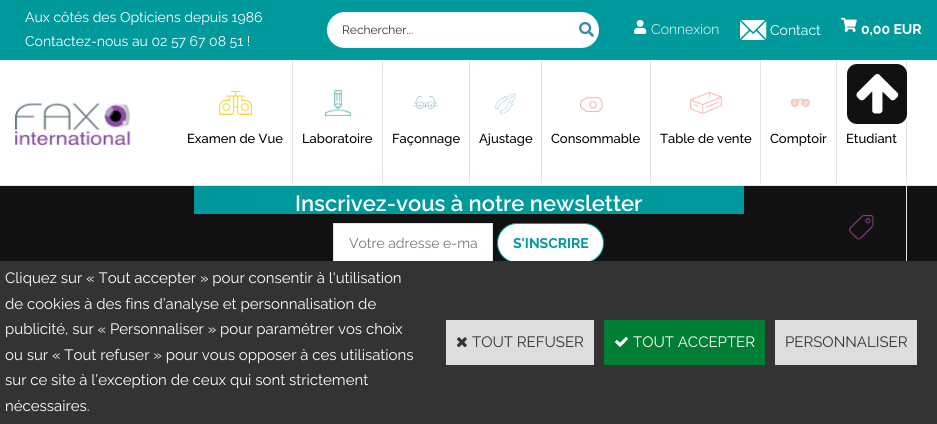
#include <cairo.h>
#include <math.h>
#include <stddef.h>

typedef struct { const char *family; double size; int italic, bold; unsigned color; } style_t;
static cairo_t *ctx;

static void ink(unsigned color) {
    cairo_set_source_rgb(ctx, (color >> 16) / 255.0, (color >> 8 & 255) / 255.0, (color & 255) / 255.0);
}

static void write(double x, double y, const char *s, const style_t *st) {
    cairo_select_font_face(ctx, st->family, st->italic ? CAIRO_FONT_SLANT_ITALIC : CAIRO_FONT_SLANT_NORMAL,
        st->bold ? CAIRO_FONT_WEIGHT_BOLD : CAIRO_FONT_WEIGHT_NORMAL);
    cairo_set_font_size(ctx, st->size);
    ink(st->color);
    cairo_move_to(ctx, x, y);
    cairo_show_text(ctx, s);
}

static void block(double x, double y, double w, double h, unsigned color) {
    ink(color);
    cairo_rectangle(ctx, x, y, w, h);
    cairo_fill(ctx);
}

static void round_path(double x, double y, double w, double h, double r) {
    cairo_new_sub_path(ctx);
    cairo_arc(ctx, x + w - r, y + h - r, r, 0, M_PI / 2);
    cairo_arc(ctx, x + r, y + h - r, r, M_PI / 2, M_PI);
    cairo_arc(ctx, x + r, y + r, r, M_PI, 1.5 * M_PI);
    cairo_arc(ctx, x + w - r, y + r, r, 1.5 * M_PI, 2 * M_PI);
    cairo_close_path(ctx);
}

static void paste(const char *path, double x, double y, double w, double h) {
    cairo_surface_t *image = cairo_image_surface_create_from_png(path);
    cairo_save(ctx);
    cairo_set_source_surface(ctx, image, x, y);
    cairo_rectangle(ctx, x, y, w, h);
    cairo_fill(ctx);
    cairo_restore(ctx);
    cairo_surface_destroy(image);
}

static const style_t s1 = {"Raleway", 14, 0, 0, 0xffffff};
static const style_t s2 = {"Raleway", 12, 0, 0, 0x333333};
static const style_t s3 = {"Raleway Light", 14, 0, 0, 0xffffff};
static const style_t s4 = {"Raleway", 14, 0, 1, 0xffffff};
static const style_t s5 = {"Raleway Medium", 13, 0, 0, 0x000000};
static const style_t s6 = {"Raleway SemiBold", 22, 0, 0, 0xffffff};
static const style_t s7 = {"Raleway", 14, 0, 0, 0x757575};
static const style_t s8 = {"Raleway", 14, 0, 1, 0x009a9c};
static const style_t s9 = {"Raleway", 15, 0, 0, 0xffffff};
static const style_t s10 = {"Raleway", 15, 0, 0, 0x333333};

int main(void) {
    cairo_surface_t *surface = cairo_image_surface_create(CAIRO_FORMAT_RGB24, 937, 424);
    ctx = cairo_create(surface);
    cairo_font_options_t *options = cairo_font_options_create();
    cairo_font_options_set_hint_metrics(options, CAIRO_HINT_METRICS_OFF);
    cairo_font_options_set_hint_style(options, CAIRO_HINT_STYLE_NONE);
    cairo_set_font_options(ctx, options);
    cairo_set_miter_limit(ctx, 4);
    ink(0x111111);
    cairo_paint(ctx);
    block(0, 60, 937, 125, 0xffffff);
    block(0, 185, 937, 1, 0xe4e4e4);
    block(0, 0, 937, 60, 0x009a9c);
    write(25, 22, "Aux côtés des Opticiens depuis 1986", &s1);
    write(25, 46, "Contactez-nous au 02 57 67 08 51 !", &s1);
    round_path(327, 12, 272, 36, 18);
    cairo_fill(ctx);
    write(342, 34, "Rechercher...", &s2);
    paste("pic1.png", 579, 21, 15, 16);
    paste("pic2.png", 634, 19, 13, 15);
    write(651, 34, "Connexion", &s3);
    paste("pic3.png", 740, 20, 27, 20);
    write(770, 35, "Contact", &s1);
    paste("pic4.png", 841, 17, 16, 15);
    write(861, 34, "0,00 EUR", &s4);
    paste("pic5.png", 15, 102, 116, 43);
    ink(0xe4e4e4);
    cairo_new_path(ctx);
    cairo_move_to(ctx, 293, 60);
    cairo_line_to(ctx, 293, 185);
    cairo_line_to(ctx, 292, 182);
    cairo_line_to(ctx, 292, 60);
    cairo_close_path(ctx);
    cairo_fill(ctx);
    paste("pic6.png", 219, 91, 33, 24);
    write(187, 143, "Examen de Vue", &s5);
    ink(0xe4e4e4);
    cairo_new_path(ctx);
    cairo_move_to(ctx, 383, 60);
    cairo_line_to(ctx, 383, 185);
    cairo_line_to(ctx, 382, 182);
    cairo_line_to(ctx, 382, 60);
    cairo_close_path(ctx);
    cairo_fill(ctx);
    paste("pic7.png", 325, 90, 26, 26);
    write(302, 143, "Laboratoire", &s5);
    ink(0xe4e4e4);
    cairo_new_path(ctx);
    cairo_move_to(ctx, 470, 60);
    cairo_line_to(ctx, 470, 185);
    cairo_line_to(ctx, 469, 182);
    cairo_line_to(ctx, 469, 60);
    cairo_close_path(ctx);
    cairo_fill(ctx);
    paste("pic8.png", 413, 96, 25, 13);
    write(392, 143, "Façonnage", &s5);
    ink(0xe4e4e4);
    cairo_new_path(ctx);
    cairo_move_to(ctx, 542, 60);
    cairo_line_to(ctx, 542, 185);
    cairo_line_to(ctx, 541, 182);
    cairo_line_to(ctx, 541, 60);
    cairo_close_path(ctx);
    cairo_fill(ctx);
    paste("pic9.png", 495, 93, 21, 21);
    write(479, 143, "Ajustage", &s5);
    ink(0xe4e4e4);
    cairo_new_path(ctx);
    cairo_move_to(ctx, 651, 60);
    cairo_line_to(ctx, 651, 185);
    cairo_line_to(ctx, 650, 182);
    cairo_line_to(ctx, 650, 60);
    cairo_close_path(ctx);
    cairo_fill(ctx);
    paste("pic10.png", 580, 96, 23, 17);
    write(551, 143, "Consommable", &s5);
    ink(0xe4e4e4);
    cairo_new_path(ctx);
    cairo_move_to(ctx, 761, 60);
    cairo_line_to(ctx, 761, 185);
    cairo_line_to(ctx, 760, 182);
    cairo_line_to(ctx, 760, 60);
    cairo_close_path(ctx);
    cairo_fill(ctx);
    paste("pic11.png", 690, 92, 32, 22);
    write(660, 143, "Table de vente", &s5);
    ink(0xe4e4e4);
    cairo_new_path(ctx);
    cairo_move_to(ctx, 837, 60);
    cairo_line_to(ctx, 837, 185);
    cairo_line_to(ctx, 836, 182);
    cairo_line_to(ctx, 836, 60);
    cairo_close_path(ctx);
    cairo_fill(ctx);
    paste("pic12.png", 790, 98, 20, 10);
    write(770, 143, "Comptoir", &s5);
    ink(0xe4e4e4);
    cairo_new_path(ctx);
    cairo_move_to(ctx, 907, 60);
    cairo_line_to(ctx, 907, 185);
    cairo_line_to(ctx, 906, 182);
    cairo_line_to(ctx, 906, 60);
    cairo_close_path(ctx);
    cairo_fill(ctx);
    write(846, 143, "Etudiant", &s5);
    ink(0xe4e4e4);
    cairo_new_path(ctx);
    cairo_move_to(ctx, 907, 185);
    cairo_line_to(ctx, 907, 310);
    cairo_line_to(ctx, 906, 307);
    cairo_line_to(ctx, 906, 185);
    cairo_close_path(ctx);
    cairo_fill(ctx);
    paste("pic13.png", 849, 215, 25, 25);
    ink(0x111111);
    round_path(847, 64, 60, 60, 10);
    cairo_fill(ctx);
    paste("pic14.png", 856, 74, 43, 40);
    paste("pic15.png", 194, 186, 550, 28);
    write(295, 211, "Inscrivez-vous à notre newsletter", &s6);
    block(334, 224, 158, 37, 0xffffff);
    cairo_rectangle(ctx, 333.5, 223.5, 159, 39);
    ink(0xe4e4e4);
    cairo_set_line_width(ctx, 1);
    cairo_stroke(ctx);
    write(349, 248, "Votre adresse e-ma", &s7);
    ink(0xffffff);
    round_path(497.5, 223.5, 106, 39, 19.5);
    cairo_fill_preserve(ctx);
    ink(0x009a9c);
    cairo_stroke(ctx);
    write(513, 248, "S'INSCRIRE", &s8);
    block(0, 261, 937, 163, 0x333333);
    write(5, 283, "Cliquez sur « Tout accepter » pour consentir à l'utilisation", &s9);
    write(5, 309, "de cookies à des fins d’analyse et personnalisation de", &s9);
    write(5, 334, "publicité, sur « Personnaliser » pour paramétrer vos choix", &s9);
    write(5, 360, "ou sur « Tout refuser » pour vous opposer à ces utilisations", &s9);
    write(5, 385, "sur ce site à l’exception de ceux qui sont strictement", &s9);
    write(5, 411, "nécessaires.", &s9);
    block(446, 320, 148, 45, 0xdddddd);
    paste("pic16.png", 457, 337, 10, 11);
    write(472, 347, "TOUT REFUSER", &s10);
    block(604, 320, 161, 45, 0x007e33);
    paste("pic17.png", 615, 337, 13, 10);
    write(633, 347, "TOUT ACCEPTER", &s9);
    block(775, 320, 142, 45, 0xdddddd);
    write(785, 347, "PERSONNALISER", &s10);
    cairo_surface_write_to_png(surface, "screenshot.png");
    cairo_font_options_destroy(options);
    cairo_destroy(ctx);
    cairo_surface_destroy(surface);
    return 0;
}
